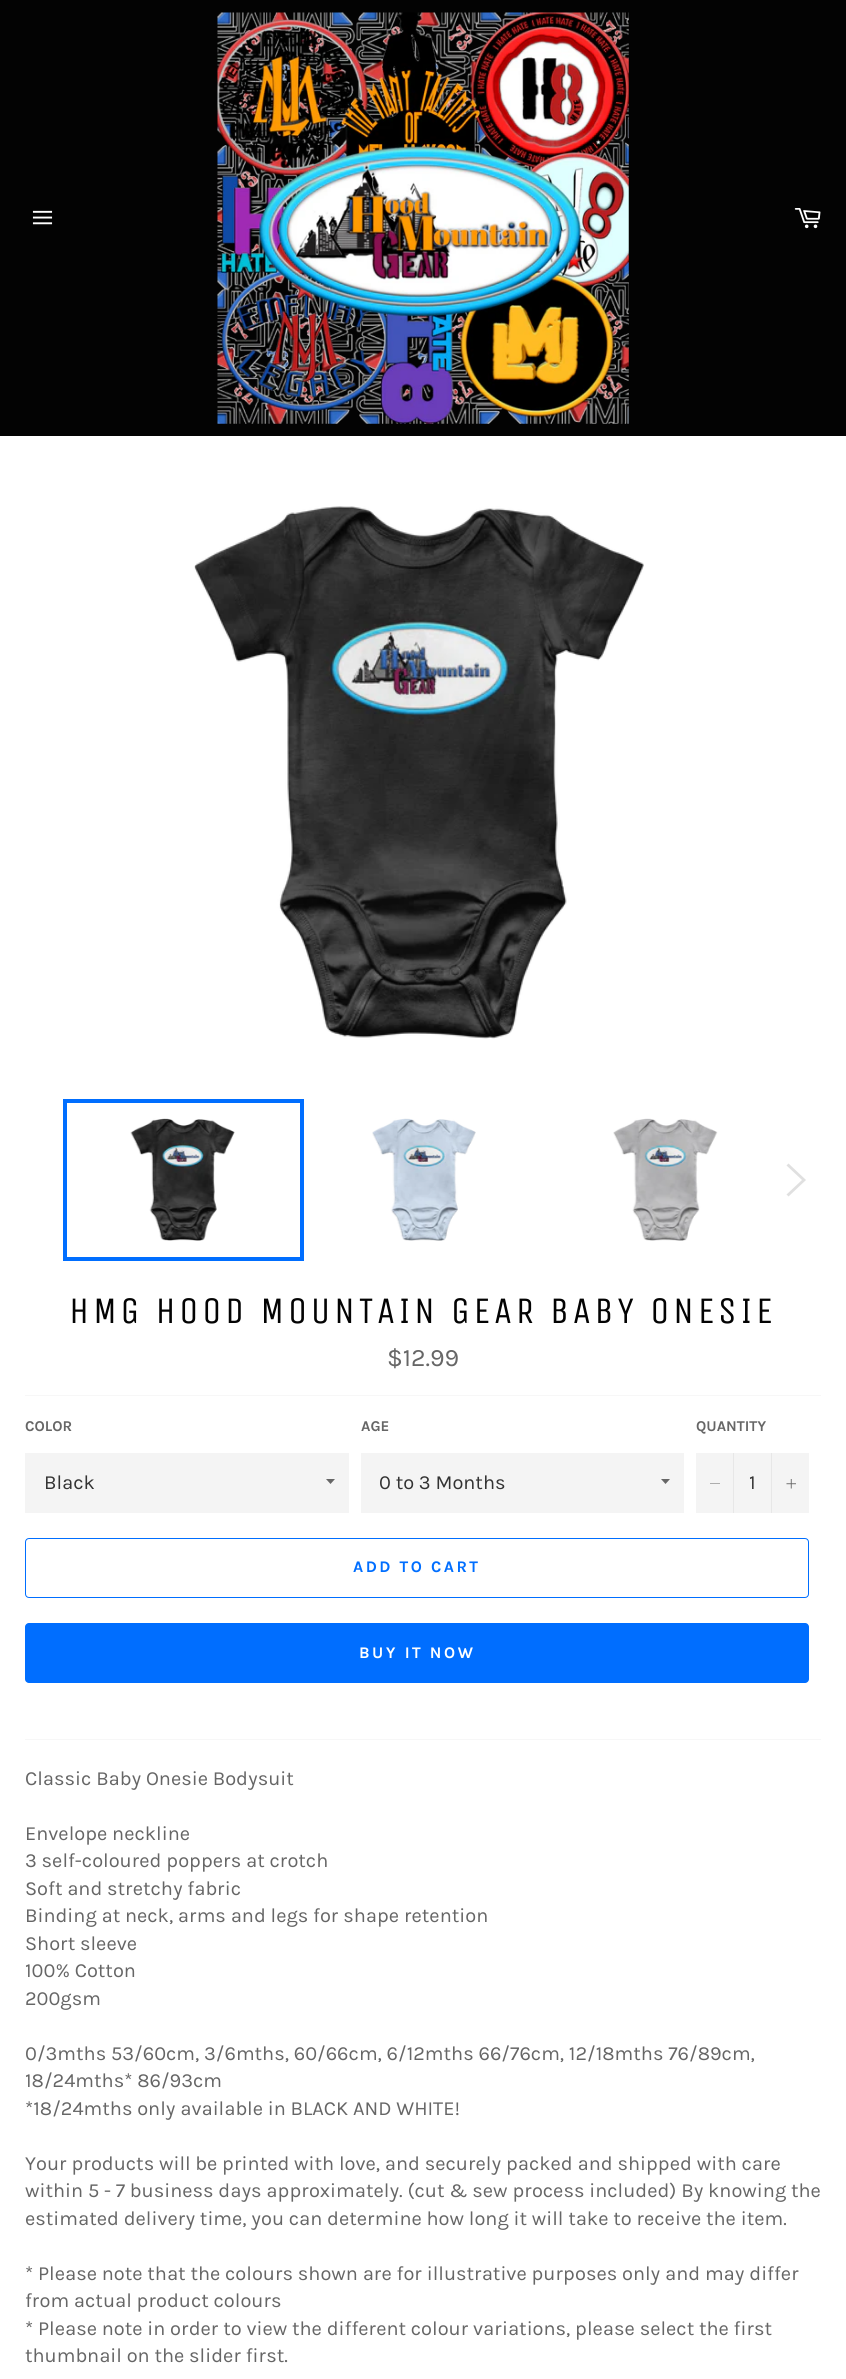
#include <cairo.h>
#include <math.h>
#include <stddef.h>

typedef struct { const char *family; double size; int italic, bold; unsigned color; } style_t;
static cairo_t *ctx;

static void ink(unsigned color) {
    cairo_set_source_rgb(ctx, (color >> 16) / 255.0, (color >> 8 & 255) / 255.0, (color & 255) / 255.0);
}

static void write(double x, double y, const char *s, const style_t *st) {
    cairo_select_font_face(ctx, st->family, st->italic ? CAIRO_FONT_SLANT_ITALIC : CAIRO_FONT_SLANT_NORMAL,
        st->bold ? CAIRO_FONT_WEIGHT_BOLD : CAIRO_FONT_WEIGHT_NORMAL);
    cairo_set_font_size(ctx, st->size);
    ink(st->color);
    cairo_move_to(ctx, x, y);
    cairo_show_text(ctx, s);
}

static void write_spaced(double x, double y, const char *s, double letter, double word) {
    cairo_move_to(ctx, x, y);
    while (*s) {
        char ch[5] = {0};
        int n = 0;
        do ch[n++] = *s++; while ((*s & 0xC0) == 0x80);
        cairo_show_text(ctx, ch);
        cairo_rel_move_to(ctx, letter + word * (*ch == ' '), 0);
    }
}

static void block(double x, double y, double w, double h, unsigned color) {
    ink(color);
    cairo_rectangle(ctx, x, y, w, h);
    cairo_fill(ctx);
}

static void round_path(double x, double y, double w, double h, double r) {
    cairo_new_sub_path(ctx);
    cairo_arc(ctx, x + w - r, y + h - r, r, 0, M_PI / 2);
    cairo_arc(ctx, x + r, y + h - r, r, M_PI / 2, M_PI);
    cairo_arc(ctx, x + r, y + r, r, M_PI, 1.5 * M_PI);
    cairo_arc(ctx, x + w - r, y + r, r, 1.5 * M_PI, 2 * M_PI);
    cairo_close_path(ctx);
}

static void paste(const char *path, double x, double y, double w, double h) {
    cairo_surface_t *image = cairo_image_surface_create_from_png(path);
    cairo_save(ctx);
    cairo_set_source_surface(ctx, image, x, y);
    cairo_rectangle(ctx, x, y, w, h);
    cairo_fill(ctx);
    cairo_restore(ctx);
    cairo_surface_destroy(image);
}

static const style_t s1 = {"Karla", 25, 0, 0, 0x666666};
static const style_t s2 = {"Karla", 15, 0, 1, 0x666666};
static const style_t s3 = {"Karla", 20, 0, 0, 0x333333};
static const style_t s4 = {"Karla", 20, 0, 0, 0x666666};

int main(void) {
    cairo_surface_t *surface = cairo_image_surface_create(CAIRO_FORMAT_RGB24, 846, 2379);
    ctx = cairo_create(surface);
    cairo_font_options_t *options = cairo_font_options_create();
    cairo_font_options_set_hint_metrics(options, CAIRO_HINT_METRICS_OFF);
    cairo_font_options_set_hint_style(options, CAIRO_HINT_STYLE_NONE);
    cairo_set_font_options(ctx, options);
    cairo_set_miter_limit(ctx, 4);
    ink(0x030303);
    cairo_paint(ctx);
    paste("pic1.png", 32, 210, 21, 15);
    paste("pic2.png", 217, 12, 412, 412);
    paste("pic3.png", 794, 208, 27, 21);
    block(0, 436, 846, 1943, 0xffffff);
    paste("pic4.png", 194, 506, 450, 533);
    paste("pic5.png", 130, 1118, 105, 123);
    cairo_rectangle(ctx, 65, 1101, 237, 158);
    ink(0x006eff);
    cairo_set_line_width(ctx, 4);
    cairo_stroke(ctx);
    paste("pic6.png", 372, 1118, 104, 123);
    paste("pic7.png", 613, 1118, 105, 123);
    ink(0xe0e0e0);
    cairo_new_path(ctx);
    cairo_move_to(ctx, 786.5, 1165.5);
    cairo_line_to(ctx, 788.5, 1163.5);
    cairo_line_to(ctx, 806, 1180);
    cairo_line_to(ctx, 788.5, 1196.5);
    cairo_line_to(ctx, 786.5, 1194.5);
    cairo_line_to(ctx, 802, 1180);
    cairo_close_path(ctx);
    cairo_fill(ctx);
    cairo_select_font_face(ctx, "Unica One", CAIRO_FONT_SLANT_NORMAL, CAIRO_FONT_WEIGHT_NORMAL);
    cairo_set_font_size(ctx, 37.5);
    ink(0x030303);
    write_spaced(69, 1323, "HMG HOOD MOUNTAIN GEAR BABY ONESIE", 3.75, 0);
    write(387, 1366, "$12.99", &s1);
    block(25, 1395, 796, 1, 0xf7f7f7);
    write(25, 1431, "COLOR", &s2);
    block(25, 1453, 324, 60, 0xf4f4f4);
    ink(0x666666);
    cairo_new_path(ctx);
    cairo_move_to(ctx, 326, 1479);
    cairo_line_to(ctx, 330.5, 1484);
    cairo_line_to(ctx, 335, 1479);
    cairo_close_path(ctx);
    cairo_fill(ctx);
    write(44, 1489, "Black", &s3);
    write(361, 1431, "AGE", &s2);
    block(361, 1453, 323, 60, 0xf4f4f4);
    ink(0x666666);
    cairo_new_path(ctx);
    cairo_move_to(ctx, 661, 1479);
    cairo_line_to(ctx, 665.5, 1484);
    cairo_line_to(ctx, 670, 1479);
    cairo_close_path(ctx);
    cairo_fill(ctx);
    write(379, 1489, "0 to 3 Months", &s3);
    write(696, 1431, "QUANTITY", &s2);
    block(696, 1453, 113, 60, 0xf4f4f4);
    block(733, 1453, 1, 60, 0xe7e7e7);
    ink(0x666666);
    cairo_set_fill_rule(ctx, CAIRO_FILL_RULE_EVEN_ODD);
    cairo_new_path(ctx);
    cairo_move_to(ctx, 720, 1483.5);
    cairo_line_to(ctx, 720, 1484);
    cairo_line_to(ctx, 710, 1484);
    cairo_line_to(ctx, 710, 1483.5);
    cairo_close_path(ctx);
    cairo_fill(ctx);
    write(749, 1489, "1", &s3);
    block(771, 1453, 1, 60, 0xe7e7e7);
    paste("pic8.png", 786, 1479, 10, 10);
    round_path(25.5, 1538.5, 783, 59, 3.5);
    ink(0x006eff);
    cairo_set_line_width(ctx, 1);
    cairo_stroke(ctx);
    cairo_select_font_face(ctx, "Karla", CAIRO_FONT_SLANT_NORMAL, CAIRO_FONT_WEIGHT_BOLD);
    cairo_set_font_size(ctx, 16.25);
    write_spaced(353, 1572, "ADD TO CART", 2.5, 0);
    round_path(25, 1623, 784, 60, 4);
    cairo_fill(ctx);
    ink(0xffffff);
    write_spaced(359, 1658, "BUY IT NOW", 2.5, 0);
    block(25, 1739, 796, 1, 0xf7f7f7);
    write(25, 1785, "Classic Baby Onesie Bodysuit", &s4);
    write(25, 1840, "Envelope neckline", &s4);
    write(25, 1867, "3 self-coloured poppers at crotch", &s4);
    write(25, 1895, "Soft and stretchy fabric", &s4);
    write(25, 1922, "Binding at neck, arms and legs for shape retention", &s4);
    write(25, 1950, "Short sleeve", &s4);
    write(25, 1977, "100% Cotton", &s4);
    write(25, 2005, "200gsm", &s4);
    write(25, 2060, "0/3mths 53/60cm, 3/6mths, 60/66cm, 6/12mths 66/76cm, 12/18mths 76/89cm,", &s4);
    write(25, 2087, "18/24mths* 86/93cm", &s4);
    write(25, 2115, "*18/24mths only available in BLACK AND WHITE!", &s4);
    write(25, 2170, "Your products will be printed with love, and securely packed and shipped with care", &s4);
    write(25, 2197, "within 5 - 7 business days approximately. (cut & sew process included) By knowing the", &s4);
    write(25, 2225, "estimated delivery time, you can determine how long it will take to receive the item.", &s4);
    write(25, 2280, "* Please note that the colours shown are for illustrative purposes only and may differ", &s4);
    write(25, 2307, "from actual product colours", &s4);
    write(25, 2335, "* Please note in order to view the different colour variations, please select the first", &s4);
    write(25, 2362, "thumbnail on the slider first.", &s4);
    cairo_surface_write_to_png(surface, "screenshot.png");
    cairo_font_options_destroy(options);
    cairo_destroy(ctx);
    cairo_surface_destroy(surface);
    return 0;
}
